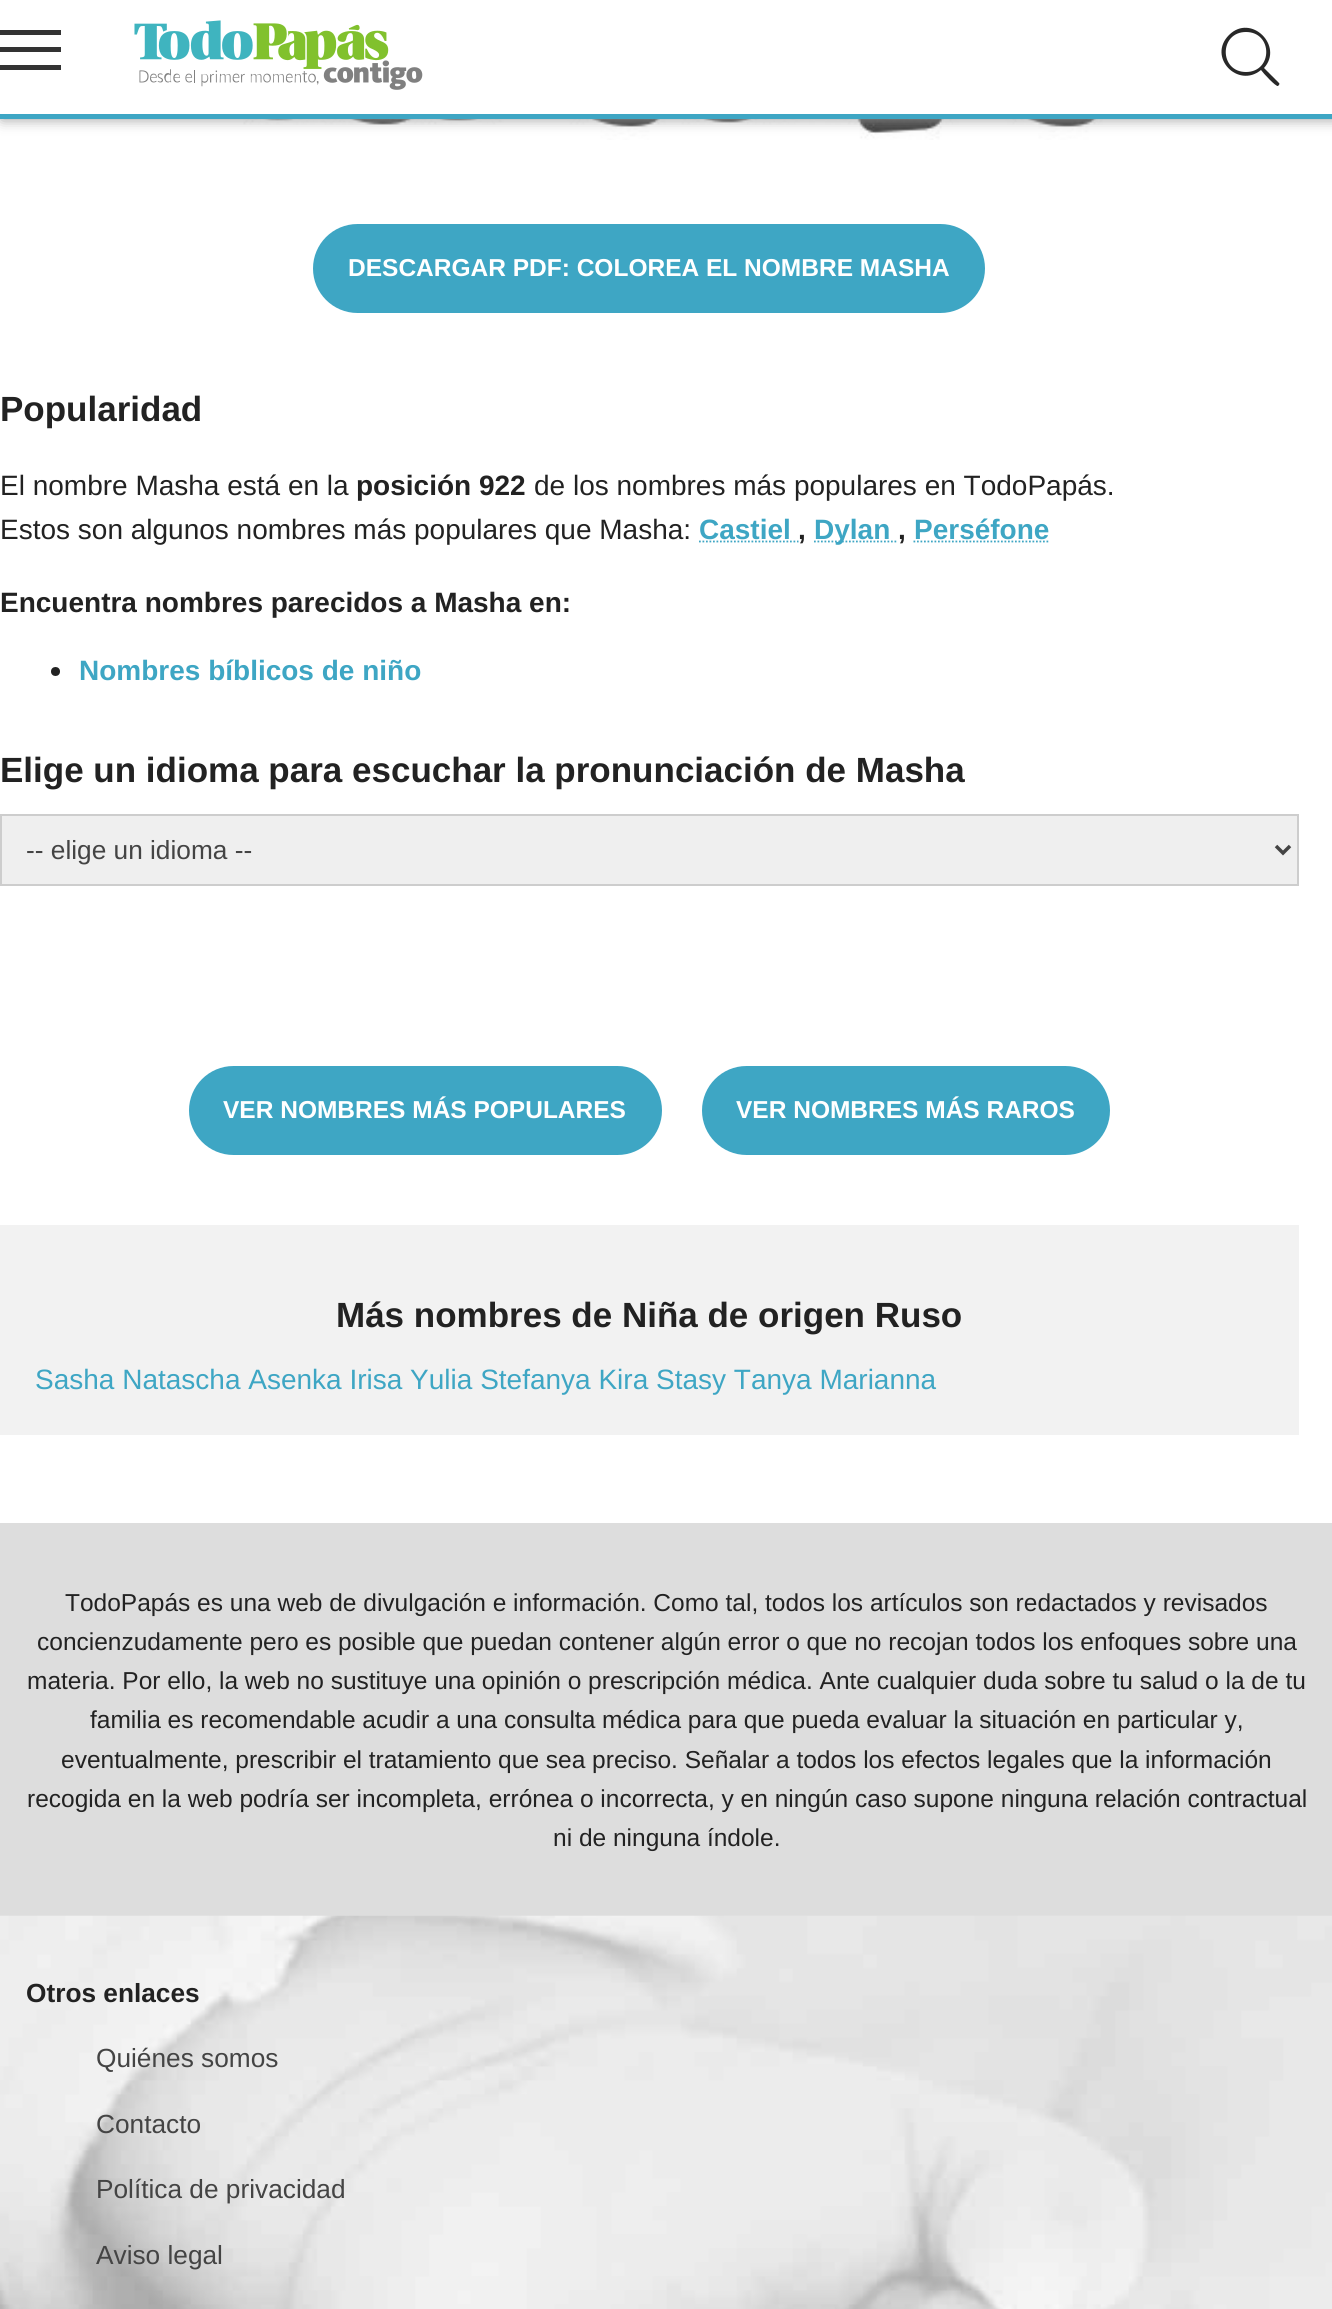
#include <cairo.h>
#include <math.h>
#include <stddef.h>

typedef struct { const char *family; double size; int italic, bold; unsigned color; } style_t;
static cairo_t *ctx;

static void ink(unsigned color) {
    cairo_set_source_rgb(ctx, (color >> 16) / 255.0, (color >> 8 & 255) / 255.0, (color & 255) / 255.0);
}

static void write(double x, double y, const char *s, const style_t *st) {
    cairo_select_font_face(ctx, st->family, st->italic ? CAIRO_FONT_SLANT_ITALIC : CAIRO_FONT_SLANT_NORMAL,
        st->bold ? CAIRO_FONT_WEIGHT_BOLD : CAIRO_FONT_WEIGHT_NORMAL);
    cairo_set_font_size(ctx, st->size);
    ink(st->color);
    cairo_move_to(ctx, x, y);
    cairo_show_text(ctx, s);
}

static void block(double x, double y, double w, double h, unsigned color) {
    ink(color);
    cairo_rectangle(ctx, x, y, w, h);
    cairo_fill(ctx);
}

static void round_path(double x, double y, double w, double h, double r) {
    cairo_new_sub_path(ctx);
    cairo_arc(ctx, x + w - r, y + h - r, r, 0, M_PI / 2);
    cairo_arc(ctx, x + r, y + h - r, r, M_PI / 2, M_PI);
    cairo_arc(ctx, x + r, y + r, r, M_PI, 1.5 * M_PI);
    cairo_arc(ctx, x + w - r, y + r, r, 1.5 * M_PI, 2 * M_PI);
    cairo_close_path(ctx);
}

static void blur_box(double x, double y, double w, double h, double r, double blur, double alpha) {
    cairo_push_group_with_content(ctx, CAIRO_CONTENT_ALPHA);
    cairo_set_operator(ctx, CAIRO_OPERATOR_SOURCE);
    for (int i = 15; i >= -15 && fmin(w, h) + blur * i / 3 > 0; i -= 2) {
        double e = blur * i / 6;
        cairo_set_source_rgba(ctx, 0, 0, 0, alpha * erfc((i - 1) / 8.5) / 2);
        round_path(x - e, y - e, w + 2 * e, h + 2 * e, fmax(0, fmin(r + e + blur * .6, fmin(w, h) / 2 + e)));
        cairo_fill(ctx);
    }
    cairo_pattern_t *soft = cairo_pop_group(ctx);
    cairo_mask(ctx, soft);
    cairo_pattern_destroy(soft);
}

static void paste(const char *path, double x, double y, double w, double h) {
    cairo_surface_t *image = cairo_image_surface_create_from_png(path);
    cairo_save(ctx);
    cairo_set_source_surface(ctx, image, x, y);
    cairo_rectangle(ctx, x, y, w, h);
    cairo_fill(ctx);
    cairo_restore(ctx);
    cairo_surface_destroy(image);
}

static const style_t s1 = {"Liberation Sans", 24.5, 0, 1, 0xffffff};
static const style_t s2 = {"Liberation Sans", 35, 0, 1, 0x222222};
static const style_t s3 = {"Liberation Sans", 28, 0, 0, 0x222222};
static const style_t s4 = {"Liberation Sans", 28, 0, 1, 0x222222};
static const style_t s5 = {"Liberation Sans", 28, 0, 1, 0x3ea6c4};
static const style_t s6 = {"Liberation Sans", 26.25, 0, 0, 0x444444};
static const style_t s7 = {"Liberation Sans", 28, 0, 0, 0x3ea6c4};
static const style_t s8 = {"Liberation Sans", 24.5, 0, 0, 0x222222};
static const style_t s9 = {"Liberation Sans", 26.25, 0, 1, 0x222222};

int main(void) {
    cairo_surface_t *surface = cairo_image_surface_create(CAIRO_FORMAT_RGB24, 1332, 2309);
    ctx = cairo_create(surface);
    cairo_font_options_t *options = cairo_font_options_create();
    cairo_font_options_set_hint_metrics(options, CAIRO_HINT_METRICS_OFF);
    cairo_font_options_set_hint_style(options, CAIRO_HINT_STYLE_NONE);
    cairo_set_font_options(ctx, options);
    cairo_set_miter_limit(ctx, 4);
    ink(0xffffff);
    cairo_paint(ctx);
    paste("pic2.png", 241, 119, 862, 21);
    ink(0x999999);
    blur_box(2, 0, 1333, 119, 0, 7, 1);
    block(0, 0, 1332, 114, 0xffffff);
    block(0, 114, 1332, 5, 0x3ea6c4);
    block(0, 30, 61, 5, 0x333333);
    block(0, 47, 61, 5, 0x333333);
    block(0, 65, 61, 5, 0x333333);
    paste("pic1.png", 134, 20, 289, 70);
    ink(0x282828);
    cairo_new_path(ctx);
    cairo_move_to(ctx, 1279, 83);
    cairo_line_to(ctx, 1264, 68);
    cairo_curve_to(ctx, 1284, 46, 1251, 13, 1229, 35);
    cairo_curve_to(ctx, 1207, 57, 1238, 89, 1261, 70);
    cairo_curve_to(ctx, 1263, 73, 1276, 87, 1278, 86);
    cairo_curve_to(ctx, 1279, 85, 1280, 84, 1279, 83);
    cairo_close_path(ctx);
    cairo_move_to(ctx, 1246, 72);
    cairo_curve_to(ctx, 1219, 72, 1219, 32, 1246, 32);
    cairo_curve_to(ctx, 1273, 32, 1273, 72, 1246, 72);
    cairo_close_path(ctx);
    cairo_fill(ctx);
    ink(0x3ea6c4);
    round_path(313, 224, 672, 89, 44.5);
    cairo_fill(ctx);
    write(348, 276, "DESCARGAR PDF: COLOREA EL NOMBRE MASHA", &s1);
    write(0, 421, "Popularidad", &s2);
    write(0, 495, "El nombre Masha está en la", &s3);
    write(356, 495, "posición 922", &s4);
    write(534, 495, "de los nombres más populares en TodoPapás.", &s3);
    write(0, 539, "Estos son algunos nombres más populares que Masha:", &s3);
    write(699, 539, "Castiel", &s5);
    write(798, 539, ",", &s4);
    cairo_new_path(ctx);
    cairo_move_to(ctx, 699, 541.5);
    cairo_line_to(ctx, 798.5, 541.5);
    ink(0x3ea6c4);
    cairo_set_line_width(ctx, 1.8);
    cairo_set_dash(ctx, (double[]){1.75, 1.75}, 2, 0);
    cairo_stroke(ctx);
    cairo_new_path(ctx);
    cairo_move_to(ctx, 814, 541.5);
    cairo_line_to(ctx, 898, 541.5);
    cairo_stroke(ctx);
    write(814, 539, "Dylan", &s5);
    write(898, 539, ",", &s4);
    write(914, 539, "Perséfone", &s5);
    cairo_new_path(ctx);
    cairo_move_to(ctx, 913.5, 541.5);
    cairo_line_to(ctx, 1049, 541.5);
    cairo_stroke(ctx);
    write(0, 612, "Encuentra nombres parecidos a Masha en:", &s4);
    cairo_new_path(ctx);
    cairo_arc(ctx, 55.5, 671.5, 4.5, 0, 2 * M_PI);
    cairo_fill(ctx);
    write(79, 680, "Nombres bíblicos de niño", &s5);
    write(0, 782, "Elige un idioma para escuchar la pronunciación de Masha", &s2);
    ink(0xefefef);
    cairo_rectangle(ctx, 1, 815, 1297, 70);
    cairo_fill_preserve(ctx);
    ink(0xcdcdcd);
    cairo_set_line_width(ctx, 2);
    cairo_set_dash(ctx, NULL, 0, 0);
    cairo_stroke(ctx);
    cairo_new_path(ctx);
    cairo_move_to(ctx, 1276, 846);
    cairo_line_to(ctx, 1283, 853);
    cairo_line_to(ctx, 1290, 846);
    ink(0x444444);
    cairo_set_line_width(ctx, 3.5);
    cairo_stroke(ctx);
    write(26, 859, "-- elige un idioma --", &s6);
    ink(0x3ea6c4);
    round_path(189, 1066, 473, 89, 44.5);
    cairo_fill(ctx);
    write(223, 1118, "VER NOMBRES MÁS POPULARES", &s1);
    ink(0x3ea6c4);
    round_path(702, 1066, 408, 89, 44.5);
    cairo_fill(ctx);
    write(736, 1118, "VER NOMBRES MÁS RAROS", &s1);
    block(0, 1225, 1299, 210, 0xf2f2f2);
    write(336, 1327, "Más nombres de Niña de origen Ruso", &s2);
    write(35, 1389, "Sasha Natascha Asenka Irisa Yulia Stefanya Kira Stasy Tanya Marianna", &s7);
    block(0, 1523, 1332, 393, 0xdddddd);
    write(65, 1611, "TodoPapás es una web de divulgación e información. Como tal, todos los artículos son redactados y revisados", &s8);
    write(37, 1650, "concienzudamente pero es posible que puedan contener algún error o que no recojan todos los enfoques sobre una", &s8);
    write(27, 1689, "materia. Por ello, la web no sustituye una opinión o prescripción médica. Ante cualquier duda sobre tu salud o la de tu", &s8);
    write(90, 1728, "familia es recomendable acudir a una consulta médica para que pueda evaluar la situación en particular y,", &s8);
    write(61, 1768, "eventualmente, prescribir el tratamiento que sea preciso. Señalar a todos los efectos legales que la información", &s8);
    write(27, 1807, "recogida en la web podría ser incompleta, errónea o incorrecta, y en ningún caso supone ninguna relación contractual", &s8);
    write(553, 1846, "ni de ninguna índole.", &s8);
    paste("pic3.png", 0, 1915, 1332, 394);
    write(26, 2002, "Otros enlaces", &s9);
    write(96, 2067, "Quiénes somos", &s6);
    write(96, 2133, "Contacto", &s6);
    write(96, 2198, "Política de privacidad", &s6);
    write(96, 2264, "Aviso legal", &s6);
    cairo_surface_write_to_png(surface, "screenshot.png");
    cairo_font_options_destroy(options);
    cairo_destroy(ctx);
    cairo_surface_destroy(surface);
    return 0;
}
